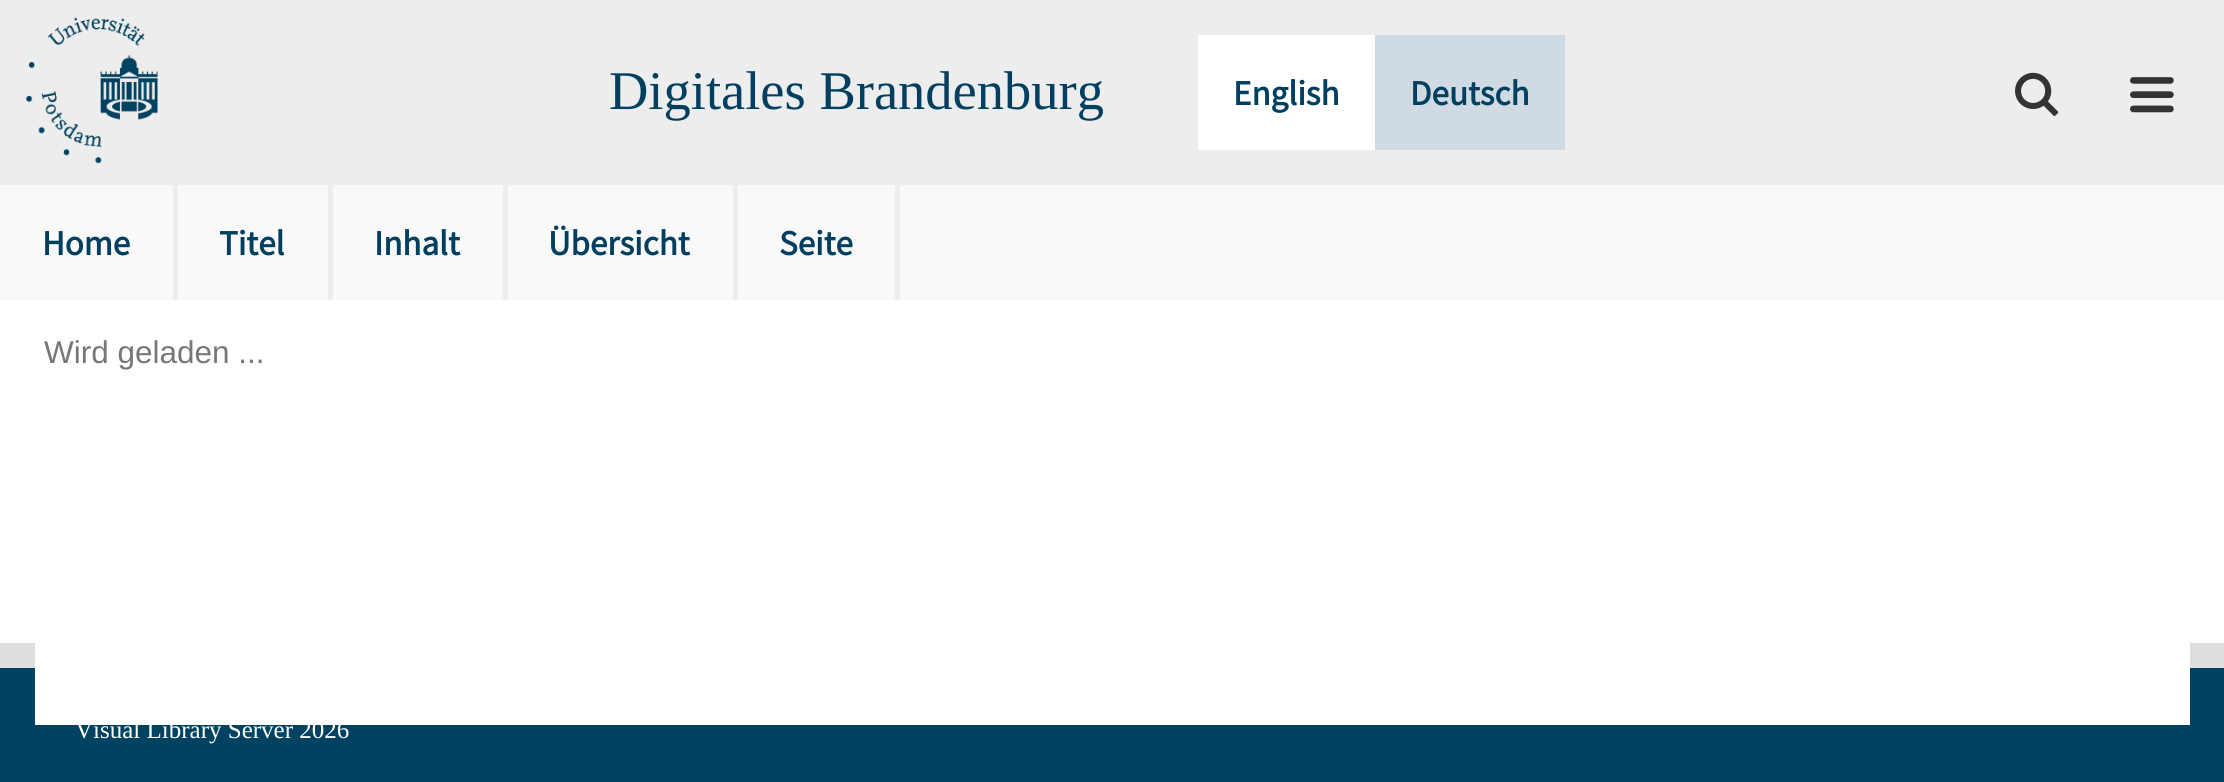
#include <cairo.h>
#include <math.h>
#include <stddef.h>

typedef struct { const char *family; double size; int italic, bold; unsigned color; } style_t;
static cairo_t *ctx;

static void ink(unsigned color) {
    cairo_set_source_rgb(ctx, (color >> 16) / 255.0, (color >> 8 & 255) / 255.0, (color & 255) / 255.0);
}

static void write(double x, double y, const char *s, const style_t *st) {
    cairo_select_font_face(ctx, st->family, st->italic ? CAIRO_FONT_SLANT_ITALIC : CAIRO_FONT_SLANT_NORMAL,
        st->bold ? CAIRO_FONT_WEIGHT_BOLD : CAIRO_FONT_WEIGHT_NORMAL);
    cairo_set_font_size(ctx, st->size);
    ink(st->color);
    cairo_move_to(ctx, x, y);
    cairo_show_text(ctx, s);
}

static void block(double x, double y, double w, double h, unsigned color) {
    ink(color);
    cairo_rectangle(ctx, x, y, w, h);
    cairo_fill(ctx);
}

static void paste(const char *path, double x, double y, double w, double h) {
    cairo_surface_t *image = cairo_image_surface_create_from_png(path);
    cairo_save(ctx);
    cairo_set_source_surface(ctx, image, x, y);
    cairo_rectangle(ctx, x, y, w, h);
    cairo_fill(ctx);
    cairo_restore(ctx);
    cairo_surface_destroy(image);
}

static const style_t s1 = {"Liberation Serif", 54.5, 0, 0, 0x003f60};
static const style_t s2 = {"Source Sans Pro", 35, 0, 1, 0x003f60};
static const style_t s3 = {"Liberation Sans", 31.5, 0, 0, 0x777777};
static const style_t s4 = {"Liberation Serif", 25, 0, 0, 0xffffff};

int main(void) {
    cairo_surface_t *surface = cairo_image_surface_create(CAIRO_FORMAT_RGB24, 2224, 782);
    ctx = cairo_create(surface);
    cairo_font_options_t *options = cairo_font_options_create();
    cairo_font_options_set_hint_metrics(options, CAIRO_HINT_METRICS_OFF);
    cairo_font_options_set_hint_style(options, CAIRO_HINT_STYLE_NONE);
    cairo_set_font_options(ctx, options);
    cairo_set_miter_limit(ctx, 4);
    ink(0xffffff);
    cairo_paint(ctx);
    block(0, 0, 2224, 185, 0xededed);
    paste("pic1.png", 26, 17, 132, 147);
    write(609, 109, "Digitales Brandenburg", &s1);
    block(1198, 35, 177, 115, 0xffffff);
    write(1233, 105, "English", &s2);
    block(1375, 35, 190, 115, 0xcfdae3);
    write(1410, 105, "Deutsch", &s2);
    paste("pic2.png", 2015, 72, 44, 45);
    paste("pic3.png", 2130, 77, 44, 36);
    block(0, 185, 2224, 115, 0xf9f9f9);
    block(173, 185, 5, 115, 0xededed);
    write(42, 255, "Home", &s2);
    block(328, 185, 5, 115, 0xededed);
    write(219, 255, "Titel", &s2);
    block(503, 185, 5, 115, 0xededed);
    write(374, 255, "Inhalt", &s2);
    block(733, 185, 5, 115, 0xededed);
    write(548, 255, "Übersicht", &s2);
    block(895, 185, 5, 115, 0xededed);
    write(779, 255, "Seite", &s2);
    block(0, 668, 2224, 114, 0x004260);
    block(0, 643, 2224, 25, 0xdedede);
    block(35, 643, 2155, 82, 0xffffff);
    write(44, 363, "Wird geladen ...", &s3);
    write(75, 738, "Visual Library Server 2026", &s4);
    cairo_surface_write_to_png(surface, "screenshot.png");
    cairo_font_options_destroy(options);
    cairo_destroy(ctx);
    cairo_surface_destroy(surface);
    return 0;
}
